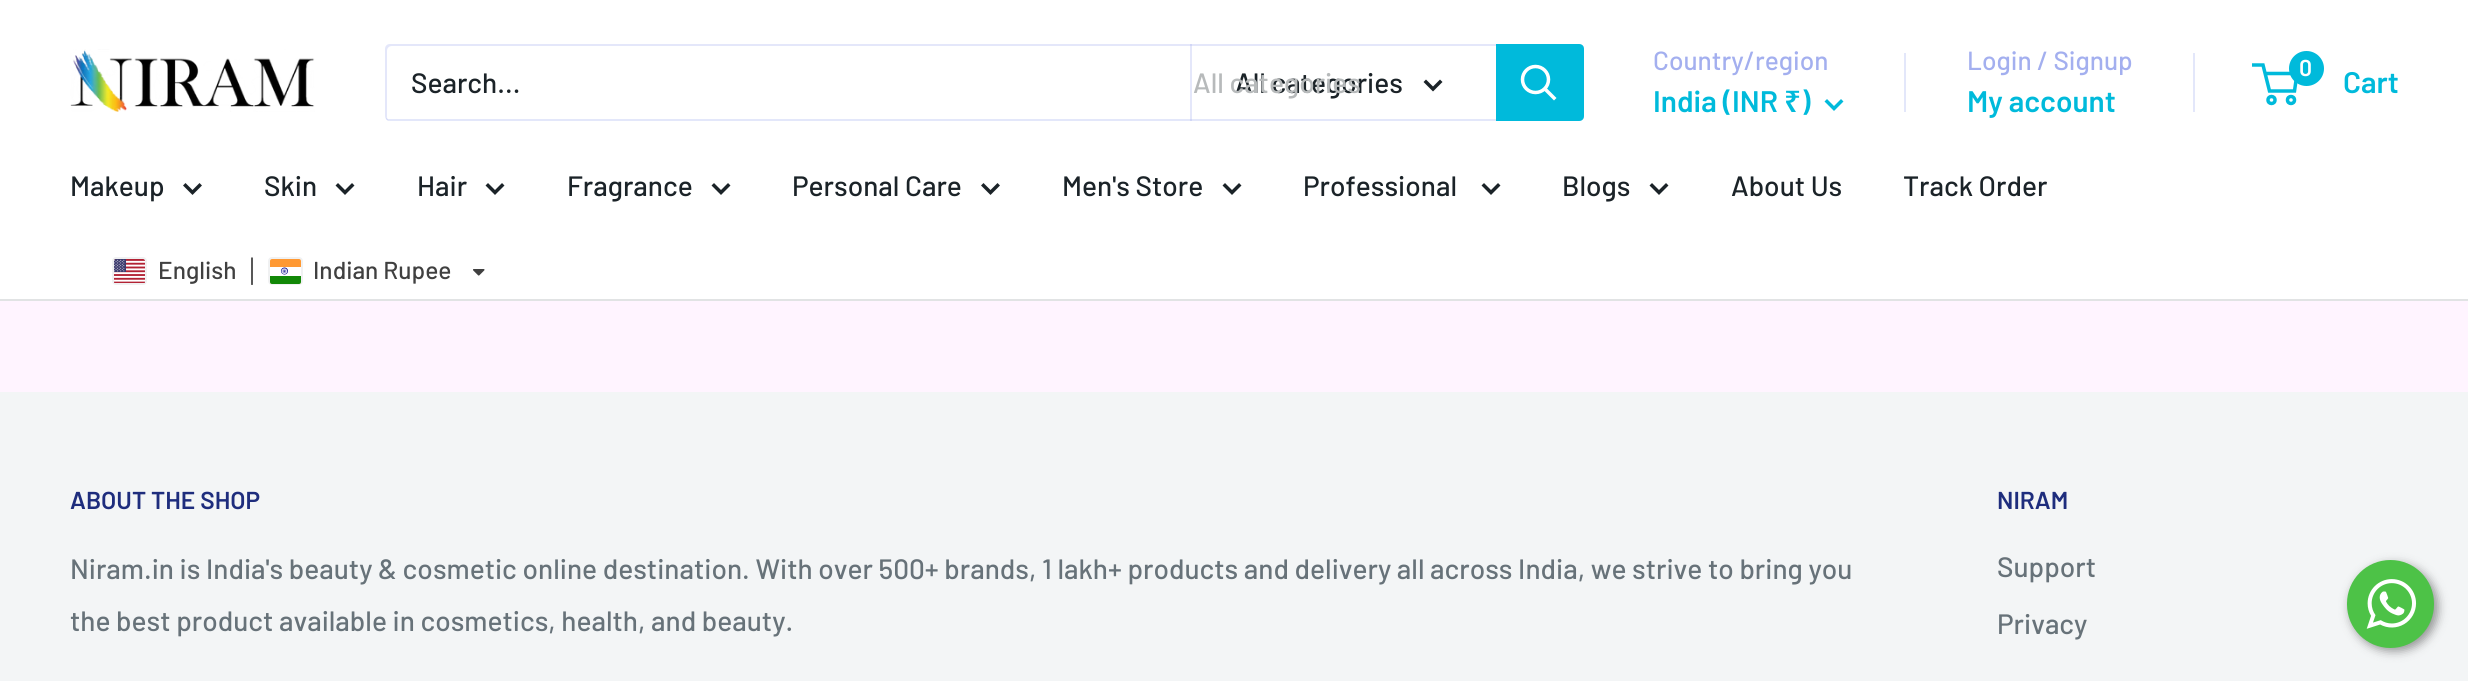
#include <cairo.h>
#include <math.h>
#include <stddef.h>

typedef struct { const char *family; double size; int italic, bold; unsigned color; } style_t;
static cairo_t *ctx;

static void ink(unsigned color) {
    cairo_set_source_rgb(ctx, (color >> 16) / 255.0, (color >> 8 & 255) / 255.0, (color & 255) / 255.0);
}

static void write(double x, double y, const char *s, const style_t *st) {
    cairo_select_font_face(ctx, st->family, st->italic ? CAIRO_FONT_SLANT_ITALIC : CAIRO_FONT_SLANT_NORMAL,
        st->bold ? CAIRO_FONT_WEIGHT_BOLD : CAIRO_FONT_WEIGHT_NORMAL);
    cairo_set_font_size(ctx, st->size);
    ink(st->color);
    cairo_move_to(ctx, x, y);
    cairo_show_text(ctx, s);
}

static void block(double x, double y, double w, double h, unsigned color) {
    ink(color);
    cairo_rectangle(ctx, x, y, w, h);
    cairo_fill(ctx);
}

static void round_path(double x, double y, double w, double h, double r) {
    cairo_new_sub_path(ctx);
    cairo_arc(ctx, x + w - r, y + h - r, r, 0, M_PI / 2);
    cairo_arc(ctx, x + r, y + h - r, r, M_PI / 2, M_PI);
    cairo_arc(ctx, x + r, y + r, r, M_PI, 1.5 * M_PI);
    cairo_arc(ctx, x + w - r, y + r, r, 1.5 * M_PI, 2 * M_PI);
    cairo_close_path(ctx);
}

static void blur_box(double x, double y, double w, double h, double r, double blur, double alpha) {
    cairo_push_group_with_content(ctx, CAIRO_CONTENT_ALPHA);
    cairo_set_operator(ctx, CAIRO_OPERATOR_SOURCE);
    for (int i = 15; i >= -15 && fmin(w, h) + blur * i / 3 > 0; i -= 2) {
        double e = blur * i / 6;
        cairo_set_source_rgba(ctx, 0, 0, 0, alpha * erfc((i - 1) / 8.5) / 2);
        round_path(x - e, y - e, w + 2 * e, h + 2 * e, fmax(0, fmin(r + e + blur * .6, fmin(w, h) / 2 + e)));
        cairo_fill(ctx);
    }
    cairo_pattern_t *soft = cairo_pop_group(ctx);
    cairo_mask(ctx, soft);
    cairo_pattern_destroy(soft);
}

static void paste(const char *path, double x, double y, double w, double h) {
    cairo_surface_t *image = cairo_image_surface_create_from_png(path);
    cairo_save(ctx);
    cairo_set_source_surface(ctx, image, x, y);
    cairo_rectangle(ctx, x, y, w, h);
    cairo_fill(ctx);
    cairo_restore(ctx);
    cairo_surface_destroy(image);
}

static const style_t s1 = {"Barlow Medium", 28, 0, 0, 0x1b2328};
static const style_t s2 = {"Barlow Medium", 28, 0, 0, 0xb7babb};
static const style_t s3 = {"Barlow Medium", 26.25, 0, 0, 0xa3afef};
static const style_t s4 = {"Barlow SemiBold", 29.75, 0, 0, 0x00badb};
static const style_t s5 = {"Noto Sans SemiBold", 29.75, 0, 0, 0x00badb};
static const style_t s6 = {"Barlow SemiBold", 23, 0, 0, 0xffffff};
static const style_t s7 = {"Barlow Medium", 24.5, 0, 0, 0x404040};
static const style_t s8 = {"Barlow SemiBold", 24.5, 0, 0, 0x1e2d7d};
static const style_t s9 = {"Barlow Medium", 28, 0, 0, 0x677279};

int main(void) {
    cairo_surface_t *surface = cairo_image_surface_create(CAIRO_FORMAT_RGB24, 2468, 681);
    ctx = cairo_create(surface);
    cairo_font_options_t *options = cairo_font_options_create();
    cairo_font_options_set_hint_metrics(options, CAIRO_HINT_METRICS_OFF);
    cairo_font_options_set_hint_style(options, CAIRO_HINT_STYLE_NONE);
    cairo_set_font_options(ctx, options);
    cairo_set_miter_limit(ctx, 4);
    ink(0xfff4ff);
    cairo_paint(ctx);
    block(0, 0, 2468, 299, 0xffffff);
    paste("pic1.png", 70, 49, 245, 63);
    ink(0xe3e7fa);
    cairo_new_path(ctx);
    cairo_move_to(ctx, 386, 118);
    cairo_curve_to(ctx, 386, 120, 388, 121, 390, 121);
    cairo_line_to(ctx, 1579, 121);
    cairo_curve_to(ctx, 1582, 121, 1584, 119, 1584, 116);
    cairo_line_to(ctx, 1584, 49);
    cairo_curve_to(ctx, 1584, 47, 1583, 46, 1582, 45);
    cairo_line_to(ctx, 1582, 47);
    cairo_line_to(ctx, 1582, 114);
    cairo_curve_to(ctx, 1582, 117, 1580, 119, 1577, 119);
    cairo_line_to(ctx, 388, 119);
    cairo_close_path(ctx);
    cairo_fill(ctx);
    cairo_set_source_rgba(ctx, 0.639, 0.686, 0.937, 0.3);
    cairo_new_path(ctx);
    cairo_move_to(ctx, 392, 46);
    cairo_line_to(ctx, 1580, 46);
    cairo_line_to(ctx, 1584, 47);
    cairo_curve_to(ctx, 1583, 45, 1581, 44, 1579, 44);
    cairo_line_to(ctx, 390, 44);
    cairo_curve_to(ctx, 387, 44, 385, 46, 385, 49);
    cairo_line_to(ctx, 385, 116);
    cairo_curve_to(ctx, 385, 118, 386, 120, 389, 121);
    cairo_curve_to(ctx, 388, 120, 387, 119, 387, 117);
    cairo_line_to(ctx, 387, 51);
    cairo_curve_to(ctx, 387, 48, 389, 46, 392, 46);
    cairo_close_path(ctx);
    cairo_fill(ctx);
    write(411, 93, "Search...", &s1);
    cairo_set_source_rgba(ctx, 0.639, 0.686, 0.937, 0.3);
    cairo_rectangle(ctx, 1190, 44, 2, 77);
    cairo_fill(ctx);
    write(1235, 93, "All categories", &s1);
    write(1193, 93, "All categories", &s2);
    cairo_new_path(ctx);
    cairo_move_to(ctx, 1440, 82);
    cairo_line_to(ctx, 1433, 89);
    cairo_line_to(ctx, 1426, 82);
    ink(0x1b2328);
    cairo_set_line_width(ctx, 3.5);
    cairo_set_line_cap(ctx, CAIRO_LINE_CAP_SQUARE);
    cairo_stroke(ctx);
    ink(0x00badb);
    cairo_new_path(ctx);
    cairo_move_to(ctx, 1496, 44);
    cairo_line_to(ctx, 1579, 44);
    cairo_curve_to(ctx, 1582, 44, 1584, 46, 1584, 49);
    cairo_line_to(ctx, 1584, 116);
    cairo_curve_to(ctx, 1584, 119, 1582, 121, 1579, 121);
    cairo_line_to(ctx, 1496, 121);
    cairo_close_path(ctx);
    cairo_fill(ctx);
    cairo_new_path(ctx);
    cairo_move_to(ctx, 1554, 98);
    cairo_line_to(ctx, 1545, 89);
    ink(0xffffff);
    cairo_stroke(ctx);
    cairo_arc(ctx, 1535.5, 79.5, 13, 0, 2 * M_PI);
    cairo_set_line_cap(ctx, CAIRO_LINE_CAP_BUTT);
    cairo_stroke(ctx);
    write(1653, 70, "Country/region", &s3);
    write(1653, 112, "India (INR", &s4);
    write(1784, 112, "₹", &s5);
    write(1801, 112, ")", &s4);
    cairo_new_path(ctx);
    cairo_move_to(ctx, 1841, 101.5);
    cairo_line_to(ctx, 1834, 108.5);
    cairo_line_to(ctx, 1827, 101.5);
    cairo_set_line_cap(ctx, CAIRO_LINE_CAP_SQUARE);
    cairo_stroke(ctx);
    block(1904, 53, 2, 59, 0xe3e7fa);
    write(1967, 70, "Login / Signup", &s3);
    block(2193, 53, 2, 59, 0xe3e7fa);
    write(1967, 112, "My account", &s4);
    cairo_new_path(ctx);
    cairo_arc(ctx, 2271.5, 100, 3.5, 0, 2 * M_PI);
    cairo_set_line_cap(ctx, CAIRO_LINE_CAP_BUTT);
    cairo_stroke(ctx);
    cairo_arc(ctx, 2291, 100, 3.5, 0, 2 * M_PI);
    cairo_stroke(ctx);
    cairo_new_path(ctx);
    cairo_move_to(ctx, 2265, 73.5);
    cairo_line_to(ctx, 2297, 73.5);
    cairo_line_to(ctx, 2294.5, 91);
    cairo_line_to(ctx, 2269.5, 91);
    cairo_line_to(ctx, 2263, 65);
    cairo_line_to(ctx, 2252, 65);
    cairo_stroke(ctx);
    cairo_arc(ctx, 2306.5, 68.5, 17.5, 0, 2 * M_PI);
    cairo_fill(ctx);
    write(2299, 76, "0", &s6);
    write(2343, 93, "Cart", &s4);
    block(0, 299, 2468, 2, 0xe1e3e4);
    write(70, 196, "Makeup", &s1);
    cairo_new_path(ctx);
    cairo_move_to(ctx, 199.5, 185.5);
    cairo_line_to(ctx, 192.5, 192.5);
    cairo_line_to(ctx, 185.5, 185.5);
    cairo_set_line_cap(ctx, CAIRO_LINE_CAP_SQUARE);
    cairo_stroke(ctx);
    write(264, 196, "Skin", &s1);
    cairo_new_path(ctx);
    cairo_move_to(ctx, 352, 185.5);
    cairo_line_to(ctx, 345, 192.5);
    cairo_line_to(ctx, 338, 185.5);
    cairo_stroke(ctx);
    write(417, 196, "Hair", &s1);
    cairo_new_path(ctx);
    cairo_move_to(ctx, 502, 185.5);
    cairo_line_to(ctx, 495, 192.5);
    cairo_line_to(ctx, 488, 185.5);
    cairo_stroke(ctx);
    write(567, 196, "Fragrance", &s1);
    cairo_new_path(ctx);
    cairo_move_to(ctx, 728, 185.5);
    cairo_line_to(ctx, 721, 192.5);
    cairo_line_to(ctx, 714, 185.5);
    cairo_stroke(ctx);
    write(792, 196, "Personal Care", &s1);
    cairo_new_path(ctx);
    cairo_move_to(ctx, 997.5, 185.5);
    cairo_line_to(ctx, 990.5, 192.5);
    cairo_line_to(ctx, 983.5, 185.5);
    cairo_stroke(ctx);
    write(1062, 196, "Men's Store", &s1);
    cairo_new_path(ctx);
    cairo_move_to(ctx, 1239, 185.5);
    cairo_line_to(ctx, 1232, 192.5);
    cairo_line_to(ctx, 1225, 185.5);
    cairo_stroke(ctx);
    write(1303, 196, "Professional", &s1);
    cairo_new_path(ctx);
    cairo_move_to(ctx, 1498, 185.5);
    cairo_line_to(ctx, 1491, 192.5);
    cairo_line_to(ctx, 1484, 185.5);
    cairo_stroke(ctx);
    write(1562, 196, "Blogs", &s1);
    cairo_new_path(ctx);
    cairo_move_to(ctx, 1666, 185.5);
    cairo_line_to(ctx, 1659, 192.5);
    cairo_line_to(ctx, 1652, 185.5);
    cairo_stroke(ctx);
    write(1731, 196, "About Us", &s1);
    write(1903, 196, "Track Order", &s1);
    round_path(113, 258, 33, 26, 3);
    ink(0xf0f1f2);
    cairo_set_line_width(ctx, 2);
    cairo_set_line_cap(ctx, CAIRO_LINE_CAP_BUTT);
    cairo_stroke(ctx);
    paste("pic2.png", 114, 259, 31, 24);
    write(158, 279, "English", &s7);
    paste("pic3.png", 251, 257, 2, 28);
    round_path(269, 258, 33, 26, 3);
    ink(0xf0f1f2);
    cairo_stroke(ctx);
    paste("pic4.png", 270, 259, 31, 25);
    write(313, 279, "Indian Rupee", &s7);
    paste("pic5.png", 473, 269, 12, 7);
    block(0, 392, 2468, 289, 0xf3f5f6);
    write(70, 509, "ABOUT THE SHOP", &s8);
    write(70, 579, "Niram.in is India's beauty & cosmetic online destination. With over 500+ brands, 1 lakh+ products and delivery all across India, we strive to bring you", &s9);
    write(70, 631, "the best product available in cosmetics, health, and beauty.", &s9);
    write(1997, 509, "NIRAM", &s8);
    write(1997, 577, "Support", &s9);
    write(1997, 634, "Privacy", &s9);
    ink(0x000000);
    blur_box(2350, 564, 88, 87, 43.5, 5, 0.4);
    ink(0x4dc247);
    round_path(2347, 560, 87, 88, 43.5);
    cairo_fill(ctx);
    paste("pic6.png", 2366, 579, 51, 50);
    cairo_surface_write_to_png(surface, "screenshot.png");
    cairo_font_options_destroy(options);
    cairo_destroy(ctx);
    cairo_surface_destroy(surface);
    return 0;
}
